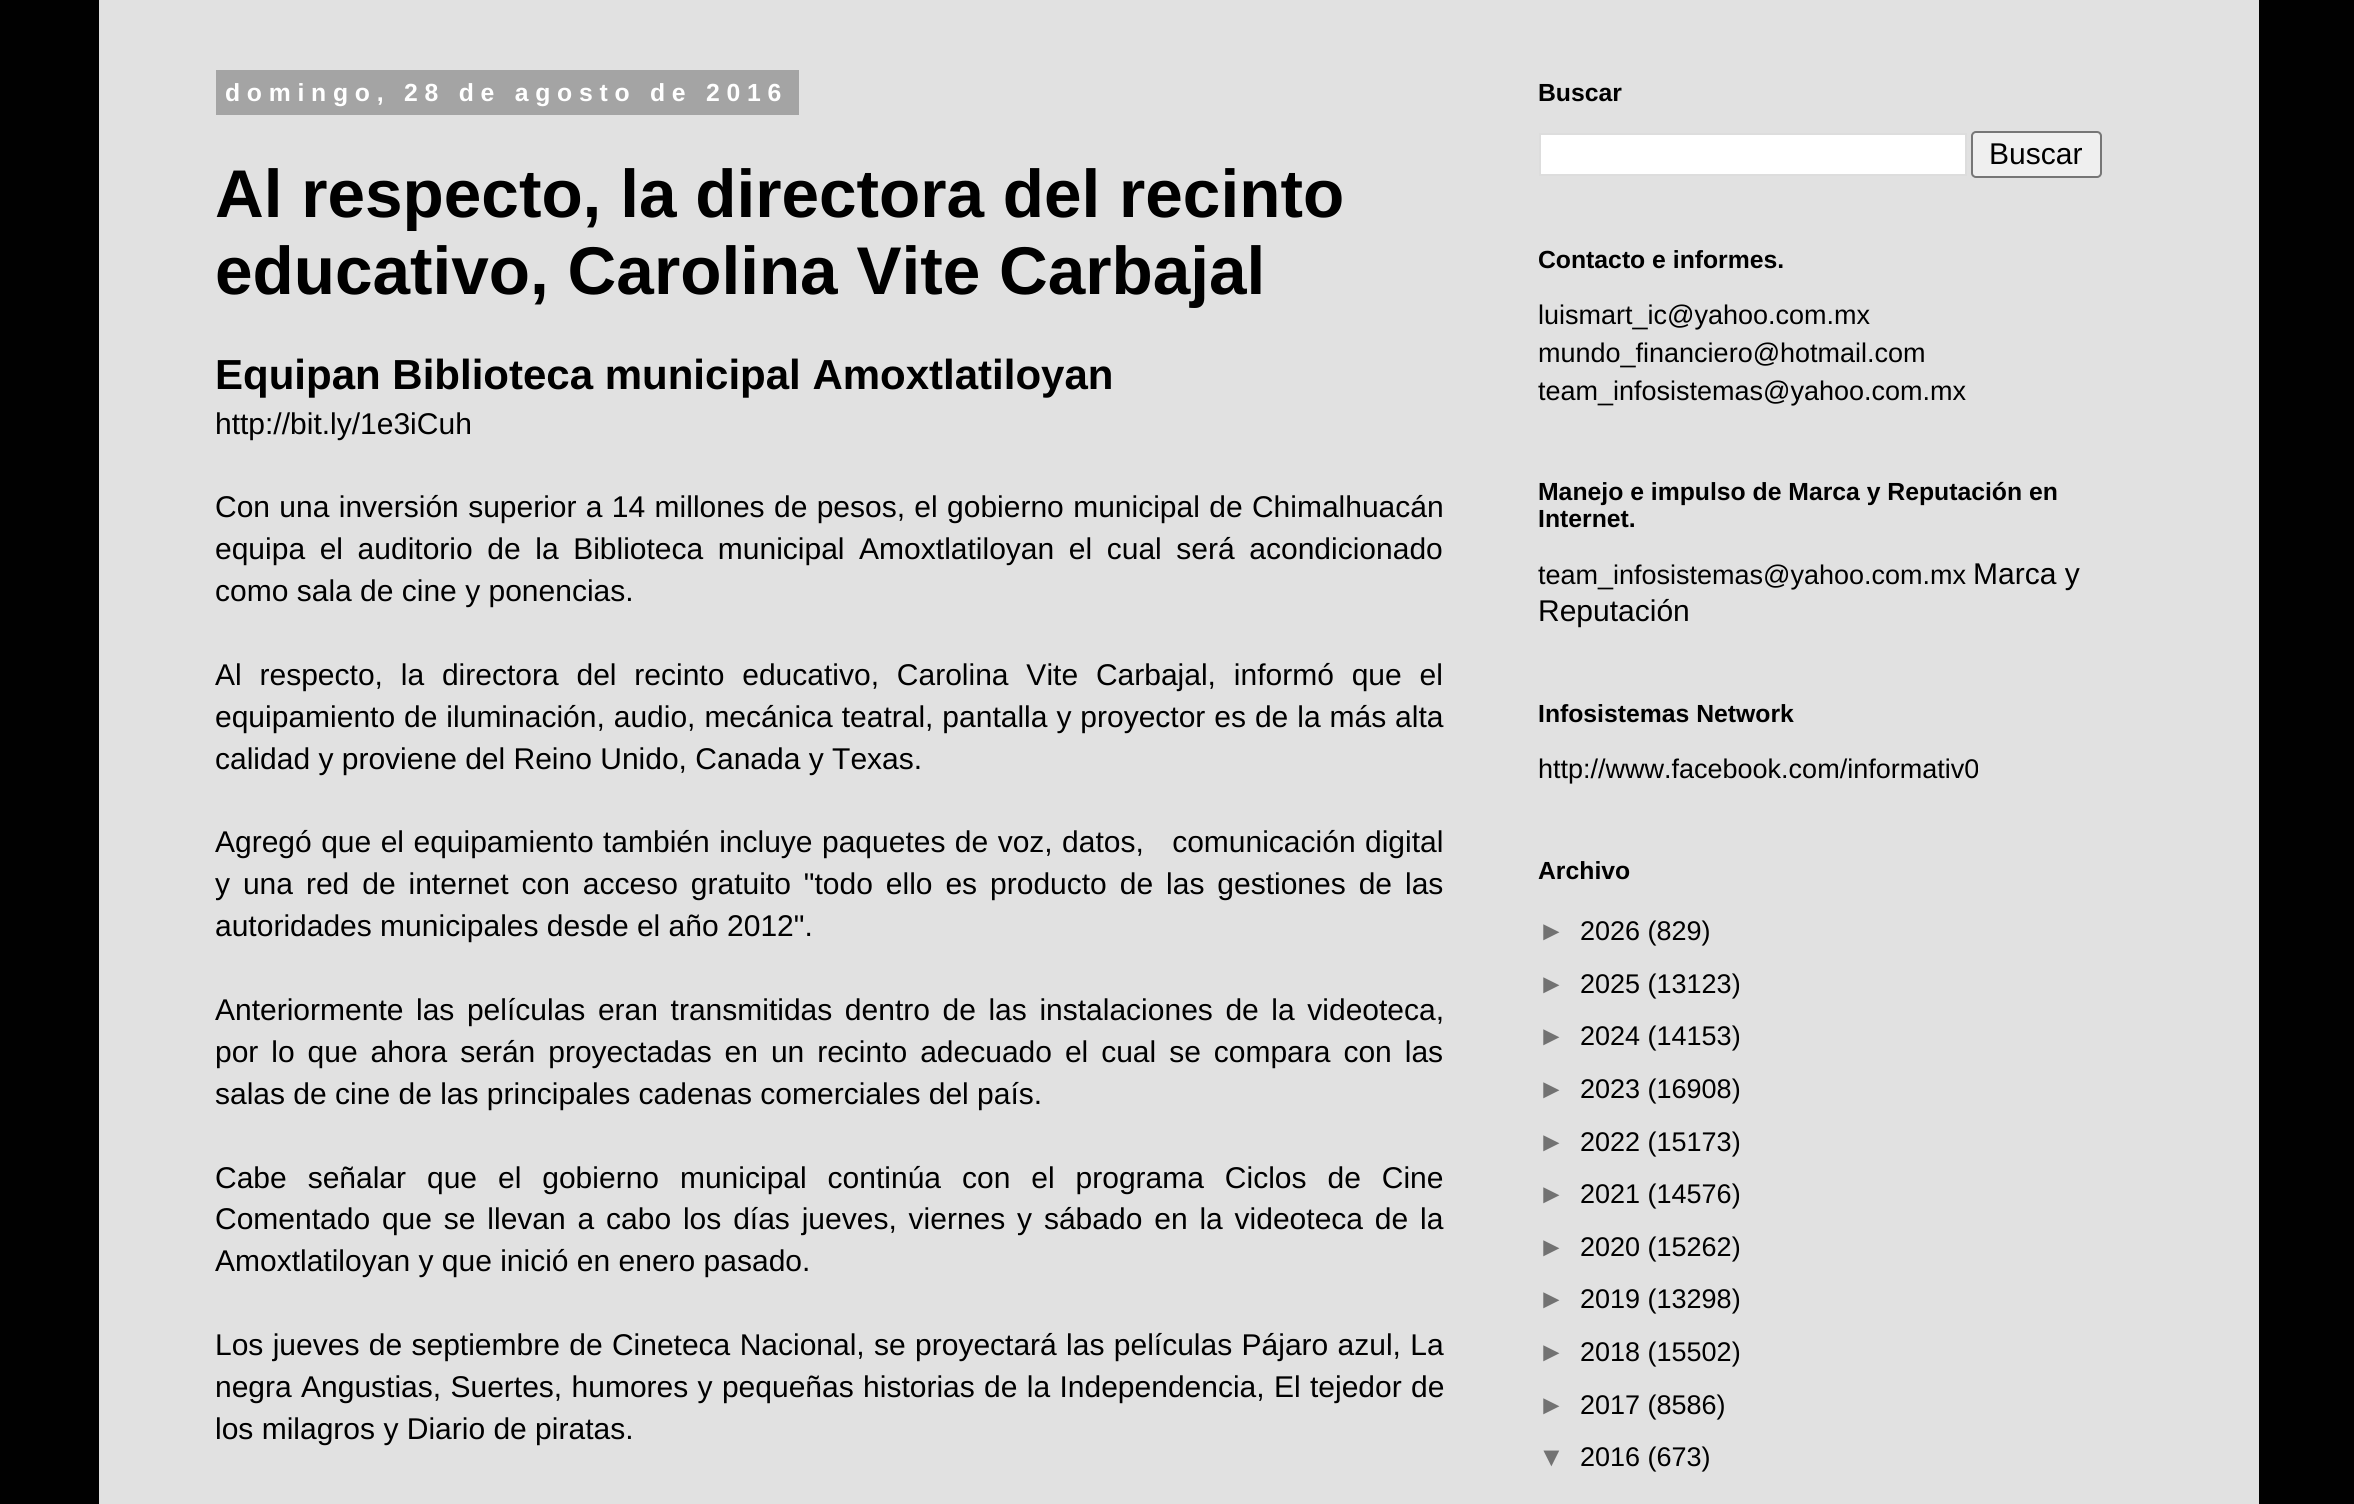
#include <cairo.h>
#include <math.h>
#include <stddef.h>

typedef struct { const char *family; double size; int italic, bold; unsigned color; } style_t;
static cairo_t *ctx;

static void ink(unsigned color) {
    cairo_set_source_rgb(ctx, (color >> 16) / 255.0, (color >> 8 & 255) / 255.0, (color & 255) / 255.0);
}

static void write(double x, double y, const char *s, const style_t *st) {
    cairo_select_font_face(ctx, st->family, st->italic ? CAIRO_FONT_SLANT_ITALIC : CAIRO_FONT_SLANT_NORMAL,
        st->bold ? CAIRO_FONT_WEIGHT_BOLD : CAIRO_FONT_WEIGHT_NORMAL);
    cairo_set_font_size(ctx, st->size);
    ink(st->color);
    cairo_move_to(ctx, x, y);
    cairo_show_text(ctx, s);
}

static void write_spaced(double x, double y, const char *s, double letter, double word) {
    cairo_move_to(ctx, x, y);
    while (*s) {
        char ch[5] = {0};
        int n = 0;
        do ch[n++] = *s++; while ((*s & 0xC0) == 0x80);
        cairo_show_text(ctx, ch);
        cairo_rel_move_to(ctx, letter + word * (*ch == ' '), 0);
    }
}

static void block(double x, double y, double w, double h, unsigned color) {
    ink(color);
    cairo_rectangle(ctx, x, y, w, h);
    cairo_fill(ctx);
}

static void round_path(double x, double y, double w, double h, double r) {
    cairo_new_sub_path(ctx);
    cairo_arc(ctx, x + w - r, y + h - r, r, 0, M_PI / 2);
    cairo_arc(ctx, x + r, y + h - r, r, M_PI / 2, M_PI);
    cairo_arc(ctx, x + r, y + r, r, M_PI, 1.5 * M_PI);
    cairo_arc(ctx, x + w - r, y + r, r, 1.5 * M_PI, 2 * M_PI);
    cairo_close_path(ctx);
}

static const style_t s1 = {"Liberation Sans", 67.5, 0, 1, 0x000000};
static const style_t s2 = {"Liberation Sans", 42, 0, 1, 0x000000};
static const style_t s3 = {"Liberation Sans", 30, 0, 0, 0x000000};
static const style_t s4 = {"Liberation Sans", 24.75, 0, 1, 0x000000};
static const style_t s5 = {"Liberation Sans", 27, 0, 0, 0x000000};
static const style_t s6 = {"Liberation Sans", 27, 0, 0, 0x727272};

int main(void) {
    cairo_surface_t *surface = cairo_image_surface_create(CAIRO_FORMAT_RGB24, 2354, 1504);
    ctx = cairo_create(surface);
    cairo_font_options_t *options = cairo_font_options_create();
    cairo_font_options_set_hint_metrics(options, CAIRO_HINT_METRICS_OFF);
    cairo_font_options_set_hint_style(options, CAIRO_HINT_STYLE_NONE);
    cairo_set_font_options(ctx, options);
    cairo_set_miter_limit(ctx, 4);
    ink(0x010101);
    cairo_paint(ctx);
    block(99, 0, 2160, 1504, 0xe1e1e1);
    block(216, 70, 583, 45, 0xa4a4a4);
    cairo_select_font_face(ctx, "Liberation Sans", CAIRO_FONT_SLANT_NORMAL, CAIRO_FONT_WEIGHT_BOLD);
    cairo_set_font_size(ctx, 24.75);
    ink(0xffffff);
    write_spaced(225, 101, "domingo, 28 de agosto de 2016", 6.75, 0);
    write(215, 217, "Al respecto, la directora del recinto", &s1);
    write(215, 294, "educativo, Carolina Vite Carbajal", &s1);
    write(215, 389, "Equipan Biblioteca municipal Amoxtlatiloyan", &s2);
    write(215, 434, "http://bit.ly/1e3iCuh", &s3);
    write_spaced(215, 517, "Con una inversión superior a 14 millones de pesos, el gobierno municipal de Chimalhuacán", 0, 1);
    write_spaced(215, 559, "equipa el auditorio de la Biblioteca municipal Amoxtlatiloyan el cual será acondicionado", 0, 6.25);
    write(215, 601, "como sala de cine y ponencias.", &s3);
    write_spaced(215, 685, "Al respecto, la directora del recinto educativo, Carolina Vite Carbajal, informó que el", 0, 9.5);
    write_spaced(215, 727, "equipamiento de iluminación, audio, mecánica teatral, pantalla y proyector es de la más alta", 0, 0.6);
    write(215, 769, "calidad y proviene del Reino Unido, Canada y Texas.", &s3);
    write_spaced(215, 852, "Agregó que el equipamiento también incluye paquetes de voz, datos,   comunicación digital", 0, 1.1);
    write_spaced(215, 894, "y una red de internet con acceso gratuito \"todo ello es producto de las gestiones de las", 0, 4.6);
    write(215, 936, "autoridades municipales desde el año 2012\".", &s3);
    write_spaced(215, 1020, "Anteriormente las películas eran transmitidas dentro de las instalaciones de la videoteca,", 0, 4.25);
    write_spaced(215, 1062, "por lo que ahora serán proyectadas en un recinto adecuado el cual se compara con las", 0, 4.6);
    write(215, 1104, "salas de cine de las principales cadenas comerciales del país.", &s3);
    write_spaced(215, 1188, "Cabe señalar que el gobierno municipal continúa con el programa Ciclos de Cine", 0, 12.6);
    write_spaced(215, 1229, "Comentado que se llevan a cabo los días jueves, viernes y sábado en la videoteca de la", 0, 3.5);
    write(215, 1271, "Amoxtlatiloyan y que inició en enero pasado.", &s3);
    write_spaced(215, 1355, "Los jueves de septiembre de Cineteca Nacional, se proyectará las películas Pájaro azul, La", 0, 1);
    write_spaced(215, 1397, "negra Angustias, Suertes, humores y pequeñas historias de la Independencia, El tejedor de", 0, 1);
    write(215, 1439, "los milagros y Diario de piratas.", &s3);
    write(1538, 101, "Buscar", &s4);
    ink(0xffffff);
    cairo_rectangle(ctx, 1540, 134, 426, 41);
    cairo_fill_preserve(ctx);
    ink(0xdddddd);
    cairo_stroke(ctx);
    ink(0xefefef);
    round_path(1972, 132, 129, 45, 4);
    cairo_fill_preserve(ctx);
    ink(0x767676);
    cairo_stroke(ctx);
    write(1989, 164, "Buscar", &s3);
    write(1538, 268, "Contacto e informes.", &s4);
    write(1538, 324, "luismart_ic@yahoo.com.mx", &s5);
    write(1538, 362, "mundo_financiero@hotmail.com", &s5);
    write(1538, 400, "team_infosistemas@yahoo.com.mx", &s5);
    write(1538, 500, "Manejo e impulso de Marca y Reputación en", &s4);
    write(1538, 527, "Internet.", &s4);
    write(1538, 584, "team_infosistemas@yahoo.com.mx", &s5);
    write(1973, 584, "Marca y", &s3);
    write(1538, 621, "Reputación", &s3);
    write(1538, 722, "Infosistemas Network", &s4);
    write(1538, 778, "http://www.facebook.com/informativ0", &s5);
    write(1538, 879, "Archivo", &s4);
    write(1538, 940, "►", &s6);
    write(1580, 940, "2026 (829)", &s5);
    write(1538, 993, "►", &s6);
    write(1580, 993, "2025 (13123)", &s5);
    write(1538, 1045, "►", &s6);
    write(1580, 1045, "2024 (14153)", &s5);
    write(1538, 1098, "►", &s6);
    write(1580, 1098, "2023 (16908)", &s5);
    write(1538, 1151, "►", &s6);
    write(1580, 1151, "2022 (15173)", &s5);
    write(1538, 1203, "►", &s6);
    write(1580, 1203, "2021 (14576)", &s5);
    write(1538, 1256, "►", &s6);
    write(1580, 1256, "2020 (15262)", &s5);
    write(1538, 1308, "►", &s6);
    write(1580, 1308, "2019 (13298)", &s5);
    write(1538, 1361, "►", &s6);
    write(1580, 1361, "2018 (15502)", &s5);
    write(1538, 1414, "►", &s6);
    write(1580, 1414, "2017 (8586)", &s5);
    write(1538, 1466, "▼", &s6);
    write(1580, 1466, "2016 (673)", &s5);
    cairo_surface_write_to_png(surface, "screenshot.png");
    cairo_font_options_destroy(options);
    cairo_destroy(ctx);
    cairo_surface_destroy(surface);
    return 0;
}
